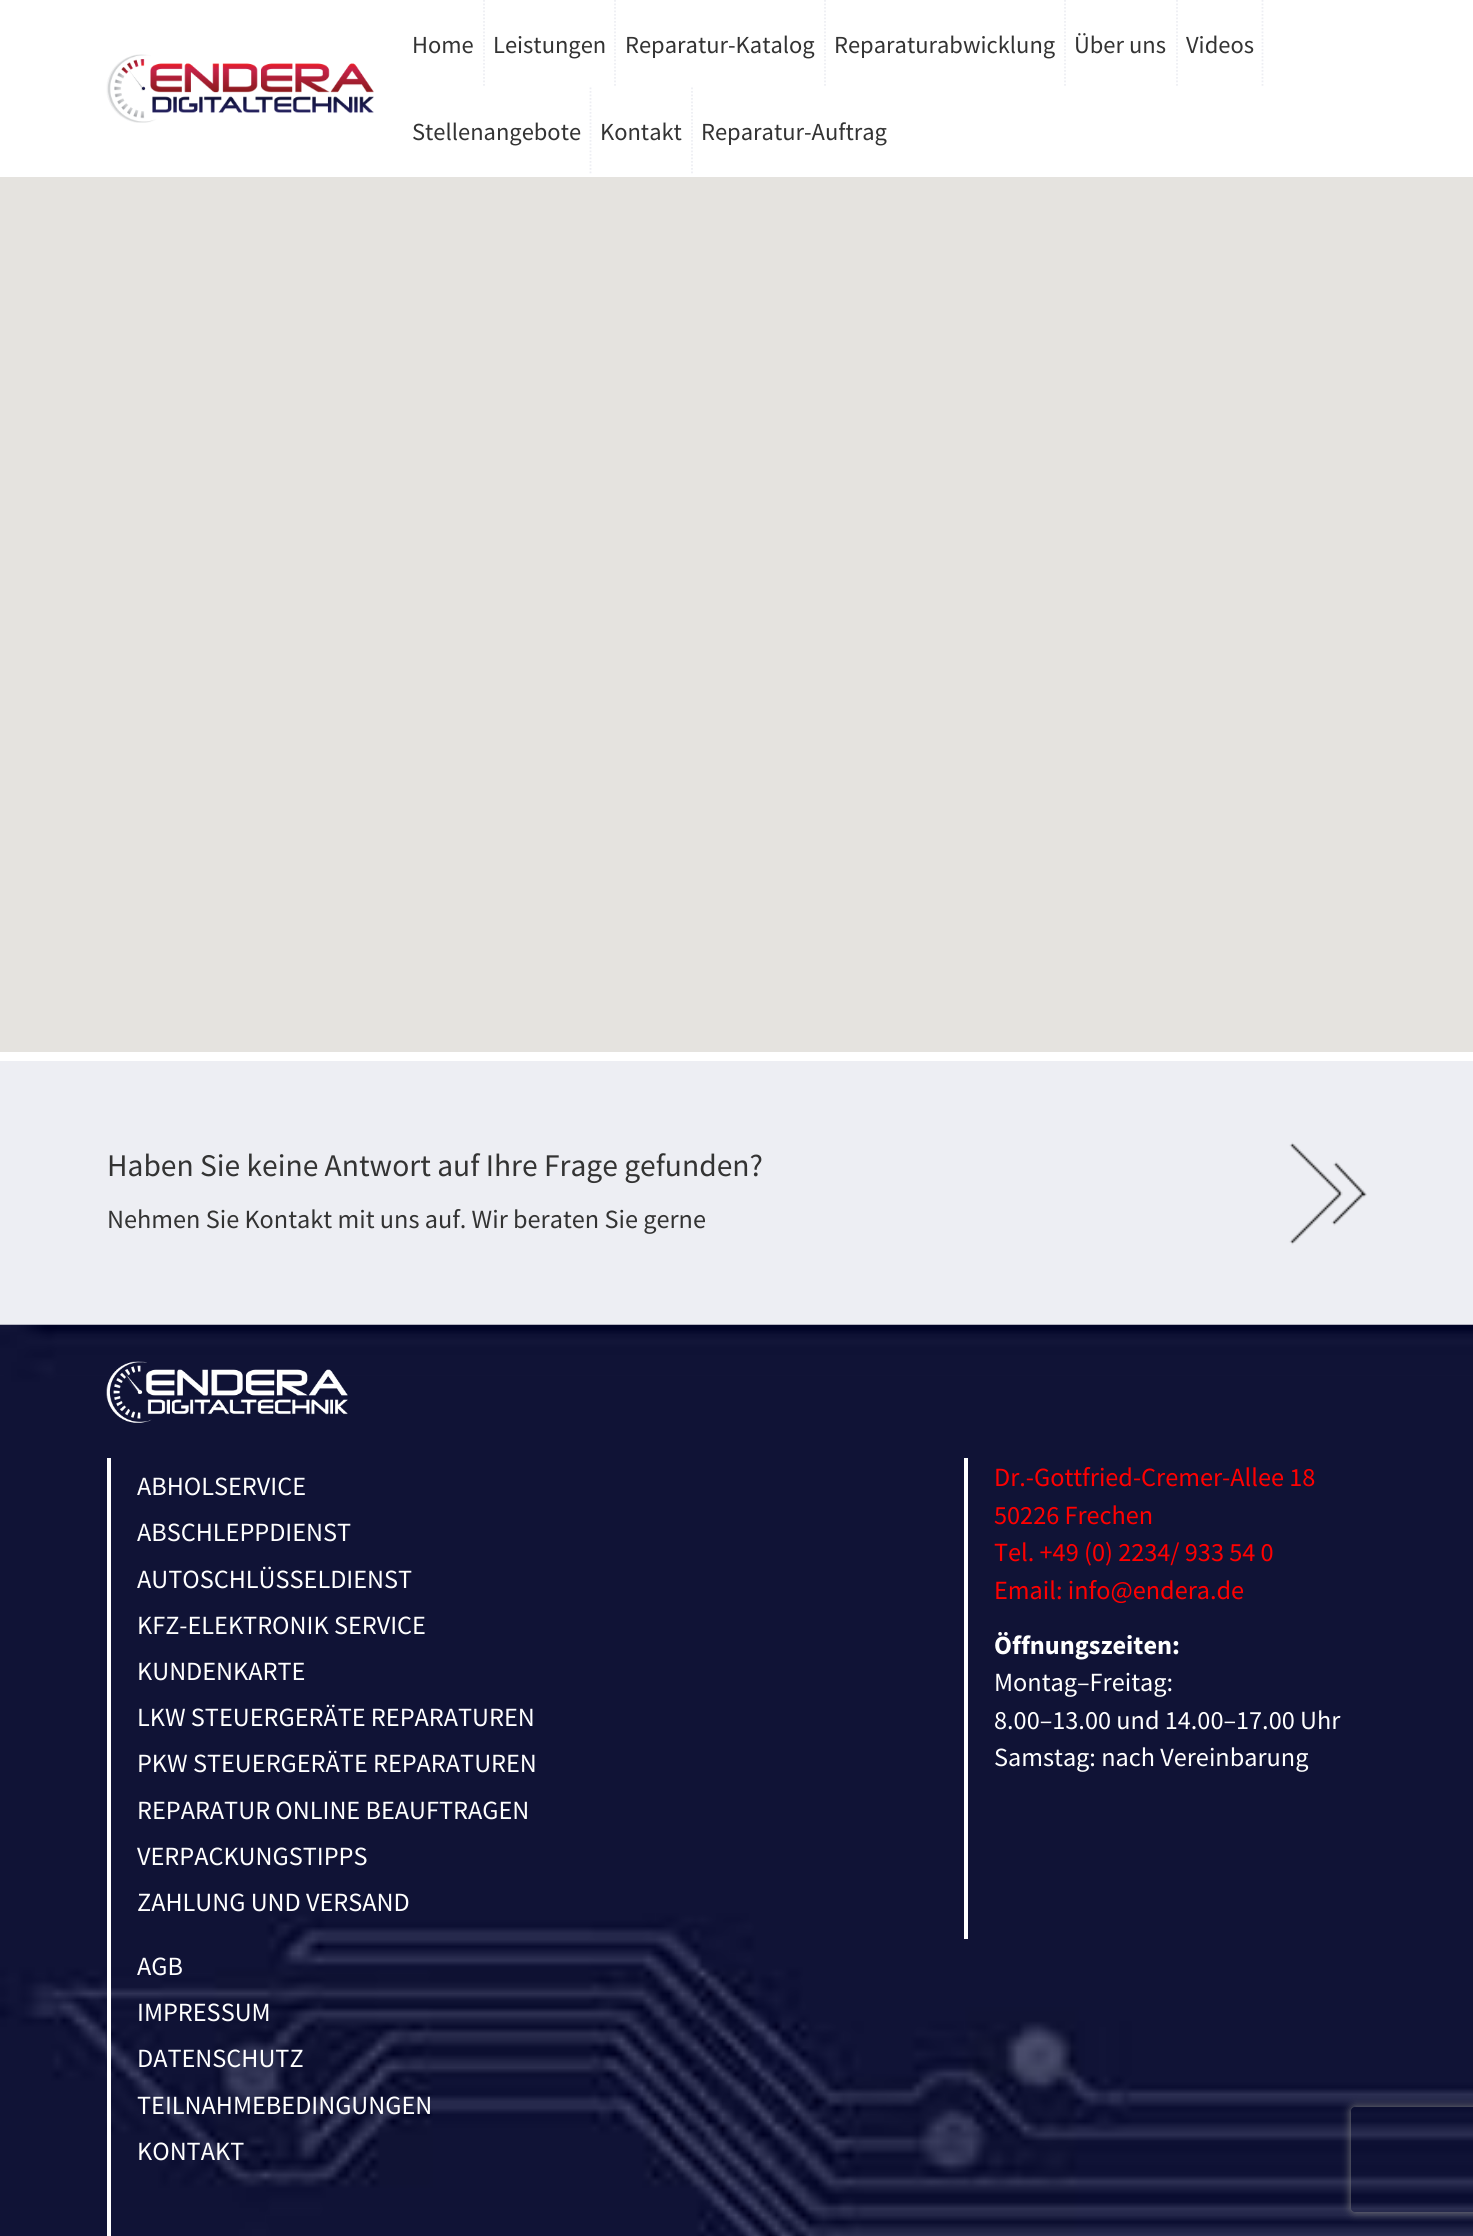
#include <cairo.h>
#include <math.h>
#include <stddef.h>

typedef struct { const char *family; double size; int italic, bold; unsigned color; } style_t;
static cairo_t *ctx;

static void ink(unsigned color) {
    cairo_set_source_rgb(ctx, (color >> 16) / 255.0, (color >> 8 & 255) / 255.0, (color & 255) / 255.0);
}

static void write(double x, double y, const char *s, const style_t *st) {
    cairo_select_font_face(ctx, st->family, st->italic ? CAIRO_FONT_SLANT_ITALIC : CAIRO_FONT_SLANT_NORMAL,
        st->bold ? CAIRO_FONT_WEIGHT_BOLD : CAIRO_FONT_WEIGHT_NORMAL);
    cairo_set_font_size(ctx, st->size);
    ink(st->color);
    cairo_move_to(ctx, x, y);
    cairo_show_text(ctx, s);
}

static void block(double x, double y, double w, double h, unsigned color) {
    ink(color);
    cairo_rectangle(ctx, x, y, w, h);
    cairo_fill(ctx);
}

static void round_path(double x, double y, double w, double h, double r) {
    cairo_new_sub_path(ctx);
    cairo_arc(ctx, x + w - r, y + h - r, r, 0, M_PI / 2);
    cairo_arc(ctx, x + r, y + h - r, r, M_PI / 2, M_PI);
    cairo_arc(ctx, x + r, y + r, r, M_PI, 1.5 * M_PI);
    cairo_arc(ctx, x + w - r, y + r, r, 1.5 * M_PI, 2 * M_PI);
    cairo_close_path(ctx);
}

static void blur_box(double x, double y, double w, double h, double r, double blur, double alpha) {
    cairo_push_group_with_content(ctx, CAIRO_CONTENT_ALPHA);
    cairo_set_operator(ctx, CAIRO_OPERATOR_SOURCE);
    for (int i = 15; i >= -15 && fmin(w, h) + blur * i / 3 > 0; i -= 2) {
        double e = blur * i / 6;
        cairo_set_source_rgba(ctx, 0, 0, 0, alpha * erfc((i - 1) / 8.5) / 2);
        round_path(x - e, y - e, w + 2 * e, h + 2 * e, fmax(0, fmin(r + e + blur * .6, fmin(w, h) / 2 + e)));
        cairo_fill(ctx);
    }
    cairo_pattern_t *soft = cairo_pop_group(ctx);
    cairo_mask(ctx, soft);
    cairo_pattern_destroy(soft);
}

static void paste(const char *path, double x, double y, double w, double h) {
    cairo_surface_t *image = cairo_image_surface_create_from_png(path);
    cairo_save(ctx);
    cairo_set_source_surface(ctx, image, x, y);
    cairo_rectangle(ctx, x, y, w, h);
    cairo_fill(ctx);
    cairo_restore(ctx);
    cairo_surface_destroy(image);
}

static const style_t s1 = {"Source Sans Pro", 24.5, 0, 0, 0x333333};
static const style_t s2 = {"Source Sans Pro", 31.5, 0, 0, 0x333333};
static const style_t s3 = {"Source Sans Pro", 26.25, 0, 0, 0x333333};
static const style_t s4 = {"Source Sans Pro", 26.25, 0, 0, 0xffffff};
static const style_t s5 = {"Source Sans Pro", 26.25, 0, 0, 0xff0000};
static const style_t s6 = {"Source Sans Pro", 26.25, 0, 1, 0xffffff};

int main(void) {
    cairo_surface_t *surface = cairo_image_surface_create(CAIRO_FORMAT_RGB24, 1473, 2236);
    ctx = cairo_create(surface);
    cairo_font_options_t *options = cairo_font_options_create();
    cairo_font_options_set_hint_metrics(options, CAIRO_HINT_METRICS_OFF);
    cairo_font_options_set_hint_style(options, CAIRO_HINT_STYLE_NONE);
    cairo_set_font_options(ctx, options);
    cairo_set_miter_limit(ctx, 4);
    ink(0xffffff);
    cairo_paint(ctx);
    paste("pic1.png", 106, 54, 268, 69);
    cairo_new_path(ctx);
    cairo_move_to(ctx, 484, 0);
    cairo_line_to(ctx, 484, 87.5);
    ink(0xedeef3);
    cairo_set_line_width(ctx, 1.8);
    cairo_set_dash(ctx, (double[]){1.75, 1.75}, 2, 0);
    cairo_stroke(ctx);
    write(412, 53, "Home", &s1);
    cairo_new_path(ctx);
    cairo_move_to(ctx, 615, 0);
    cairo_line_to(ctx, 615, 87.5);
    ink(0xedeef3);
    cairo_stroke(ctx);
    write(493, 53, "Leistungen", &s1);
    cairo_new_path(ctx);
    cairo_move_to(ctx, 825, 0);
    cairo_line_to(ctx, 825, 87.5);
    ink(0xedeef3);
    cairo_stroke(ctx);
    write(625, 53, "Reparatur-Katalog", &s1);
    cairo_new_path(ctx);
    cairo_move_to(ctx, 1065, 0);
    cairo_line_to(ctx, 1065, 87.5);
    ink(0xedeef3);
    cairo_stroke(ctx);
    write(834, 53, "Reparaturabwicklung", &s1);
    cairo_new_path(ctx);
    cairo_move_to(ctx, 1177, 0);
    cairo_line_to(ctx, 1177, 87.5);
    ink(0xedeef3);
    cairo_stroke(ctx);
    write(1074, 53, "Über uns", &s1);
    cairo_new_path(ctx);
    cairo_move_to(ctx, 1262.5, 0);
    cairo_line_to(ctx, 1262.5, 87.5);
    ink(0xedeef3);
    cairo_stroke(ctx);
    write(1186, 53, "Videos", &s1);
    cairo_new_path(ctx);
    cairo_move_to(ctx, 590.5, 87.5);
    cairo_line_to(ctx, 590.5, 175);
    ink(0xedeef3);
    cairo_stroke(ctx);
    write(412, 140, "Stellenangebote", &s1);
    cairo_new_path(ctx);
    cairo_move_to(ctx, 692, 87.5);
    cairo_line_to(ctx, 692, 175);
    ink(0xedeef3);
    cairo_stroke(ctx);
    write(600, 140, "Kontakt", &s1);
    write(701, 140, "Reparatur-Auftrag", &s1);
    block(0, 177, 1473, 875, 0xe5e3df);
    block(0, 1061, 1473, 264, 0xedeef3);
    write(107, 1176, "Haben Sie keine Antwort auf Ihre Frage gefunden?", &s2);
    write(107, 1228, "Nehmen Sie Kontakt mit uns auf. Wir beraten Sie gerne", &s3);
    paste("pic2.png", 1289, 1142, 78, 103);
    paste("pic3.png", 0, 1324, 1473, 912);
    paste("pic4.png", 106, 1361, 242, 62);
    block(107, 1458, 4, 778, 0xffffff);
    write(137, 1495, "ABHOLSERVICE", &s4);
    write(137, 1541, "ABSCHLEPPDIENST", &s4);
    write(137, 1588, "AUTOSCHLÜSSELDIENST", &s4);
    write(137, 1634, "KFZ-ELEKTRONIK SERVICE", &s4);
    write(137, 1680, "KUNDENKARTE", &s4);
    write(137, 1726, "LKW STEUERGERÄTE REPARATUREN", &s4);
    write(137, 1772, "PKW STEUERGERÄTE REPARATUREN", &s4);
    write(137, 1819, "REPARATUR ONLINE BEAUFTRAGEN", &s4);
    write(137, 1865, "VERPACKUNGSTIPPS", &s4);
    write(137, 1911, "ZAHLUNG UND VERSAND", &s4);
    block(964, 1458, 4, 481, 0xffffff);
    write(994, 1486, "Dr.-Gottfried-Cremer-Allee 18", &s5);
    write(994, 1524, "50226 Frechen", &s5);
    write(994, 1561, "Tel. +49 (0) 2234/ 933 54 0", &s5);
    write(994, 1599, "Email: info@endera.de", &s5);
    write(994, 1654, "Öffnungszeiten:", &s6);
    write(994, 1691, "Montag–Freitag:", &s4);
    write(994, 1729, "8.00–13.00 und 14.00–17.00 Uhr", &s4);
    write(994, 1766, "Samstag: nach Vereinbarung", &s4);
    write(137, 1975, "AGB", &s4);
    write(137, 2021, "IMPRESSUM", &s4);
    write(137, 2067, "DATENSCHUTZ", &s4);
    write(137, 2114, "TEILNAHMEBEDINGUNGEN", &s4);
    write(137, 2160, "KONTAKT", &s4);
    cairo_save(ctx);
    cairo_set_fill_rule(ctx, CAIRO_FILL_RULE_EVEN_ODD);
    cairo_new_path(ctx);
    cairo_move_to(ctx, 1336, 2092);
    cairo_line_to(ctx, 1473, 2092);
    cairo_line_to(ctx, 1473, 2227);
    cairo_line_to(ctx, 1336, 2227);
    cairo_close_path(ctx);
    cairo_move_to(ctx, 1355, 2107);
    cairo_line_to(ctx, 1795, 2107);
    cairo_curve_to(ctx, 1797, 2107, 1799, 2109, 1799, 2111);
    cairo_line_to(ctx, 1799, 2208);
    cairo_curve_to(ctx, 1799, 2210, 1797, 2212, 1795, 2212);
    cairo_line_to(ctx, 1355, 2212);
    cairo_curve_to(ctx, 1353, 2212, 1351, 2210, 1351, 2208);
    cairo_line_to(ctx, 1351, 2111);
    cairo_curve_to(ctx, 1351, 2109, 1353, 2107, 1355, 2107);
    cairo_close_path(ctx);
    cairo_clip(ctx);
    ink(0x808080);
    blur_box(1351, 2107, 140, 105, 4, 4.5, 1);
    cairo_restore(ctx);
    cairo_surface_write_to_png(surface, "screenshot.png");
    cairo_font_options_destroy(options);
    cairo_destroy(ctx);
    cairo_surface_destroy(surface);
    return 0;
}
